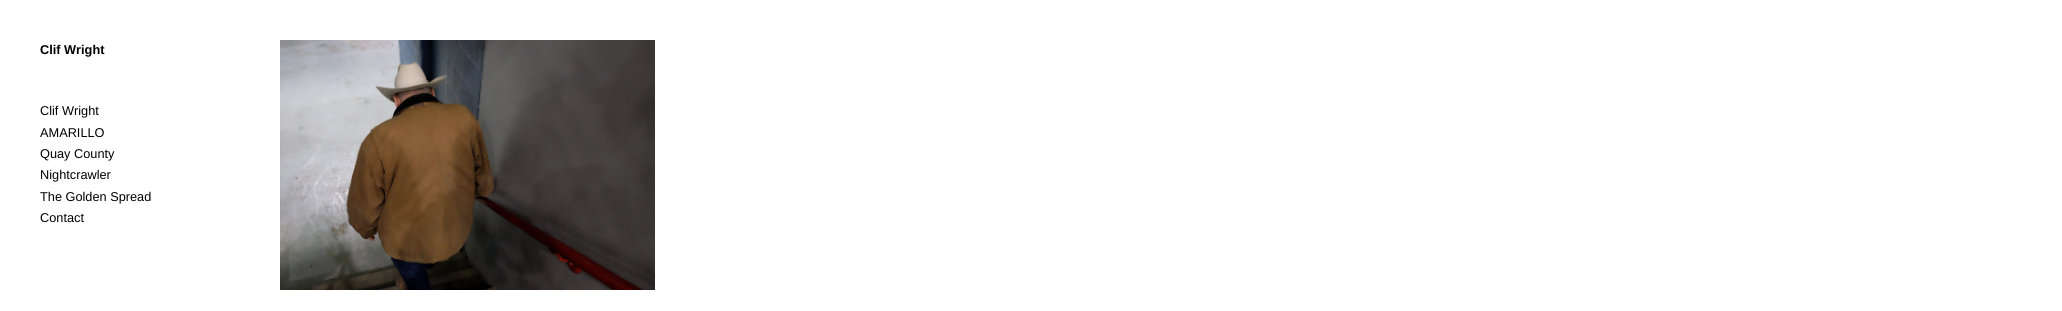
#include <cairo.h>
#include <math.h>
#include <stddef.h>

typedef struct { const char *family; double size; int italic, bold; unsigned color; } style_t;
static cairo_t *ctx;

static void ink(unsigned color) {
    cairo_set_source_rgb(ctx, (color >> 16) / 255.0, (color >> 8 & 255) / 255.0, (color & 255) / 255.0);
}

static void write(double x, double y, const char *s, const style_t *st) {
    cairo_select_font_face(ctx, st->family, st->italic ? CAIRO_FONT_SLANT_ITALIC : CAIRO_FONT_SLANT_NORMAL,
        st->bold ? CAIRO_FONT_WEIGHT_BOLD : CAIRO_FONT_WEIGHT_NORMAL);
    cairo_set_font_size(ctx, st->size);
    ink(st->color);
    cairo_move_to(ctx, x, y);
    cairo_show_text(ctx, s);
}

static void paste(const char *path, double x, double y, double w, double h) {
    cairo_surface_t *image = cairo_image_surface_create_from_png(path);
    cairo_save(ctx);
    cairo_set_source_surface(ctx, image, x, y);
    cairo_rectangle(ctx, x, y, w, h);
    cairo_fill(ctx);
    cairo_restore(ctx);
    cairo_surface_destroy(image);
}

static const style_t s1 = {"Liberation Sans", 12.75, 0, 1, 0x000000};
static const style_t s2 = {"Liberation Sans", 12.75, 0, 0, 0x000000};

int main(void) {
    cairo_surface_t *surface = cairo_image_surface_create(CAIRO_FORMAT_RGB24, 2062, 311);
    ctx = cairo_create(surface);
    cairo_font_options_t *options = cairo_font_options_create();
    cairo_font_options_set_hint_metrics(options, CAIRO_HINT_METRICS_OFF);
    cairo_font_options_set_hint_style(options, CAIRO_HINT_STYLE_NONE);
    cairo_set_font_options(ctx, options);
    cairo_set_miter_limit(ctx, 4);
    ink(0xffffff);
    cairo_paint(ctx);
    write(40, 54, "Clif Wright", &s1);
    write(40, 115, "Clif Wright", &s2);
    write(40, 137, "AMARILLO", &s2);
    write(40, 158, "Quay County", &s2);
    write(40, 179, "Nightcrawler", &s2);
    write(40, 201, "The Golden Spread", &s2);
    write(40, 222, "Contact", &s2);
    paste("pic1.png", 280, 40, 375, 250);
    cairo_surface_write_to_png(surface, "screenshot.png");
    cairo_font_options_destroy(options);
    cairo_destroy(ctx);
    cairo_surface_destroy(surface);
    return 0;
}
